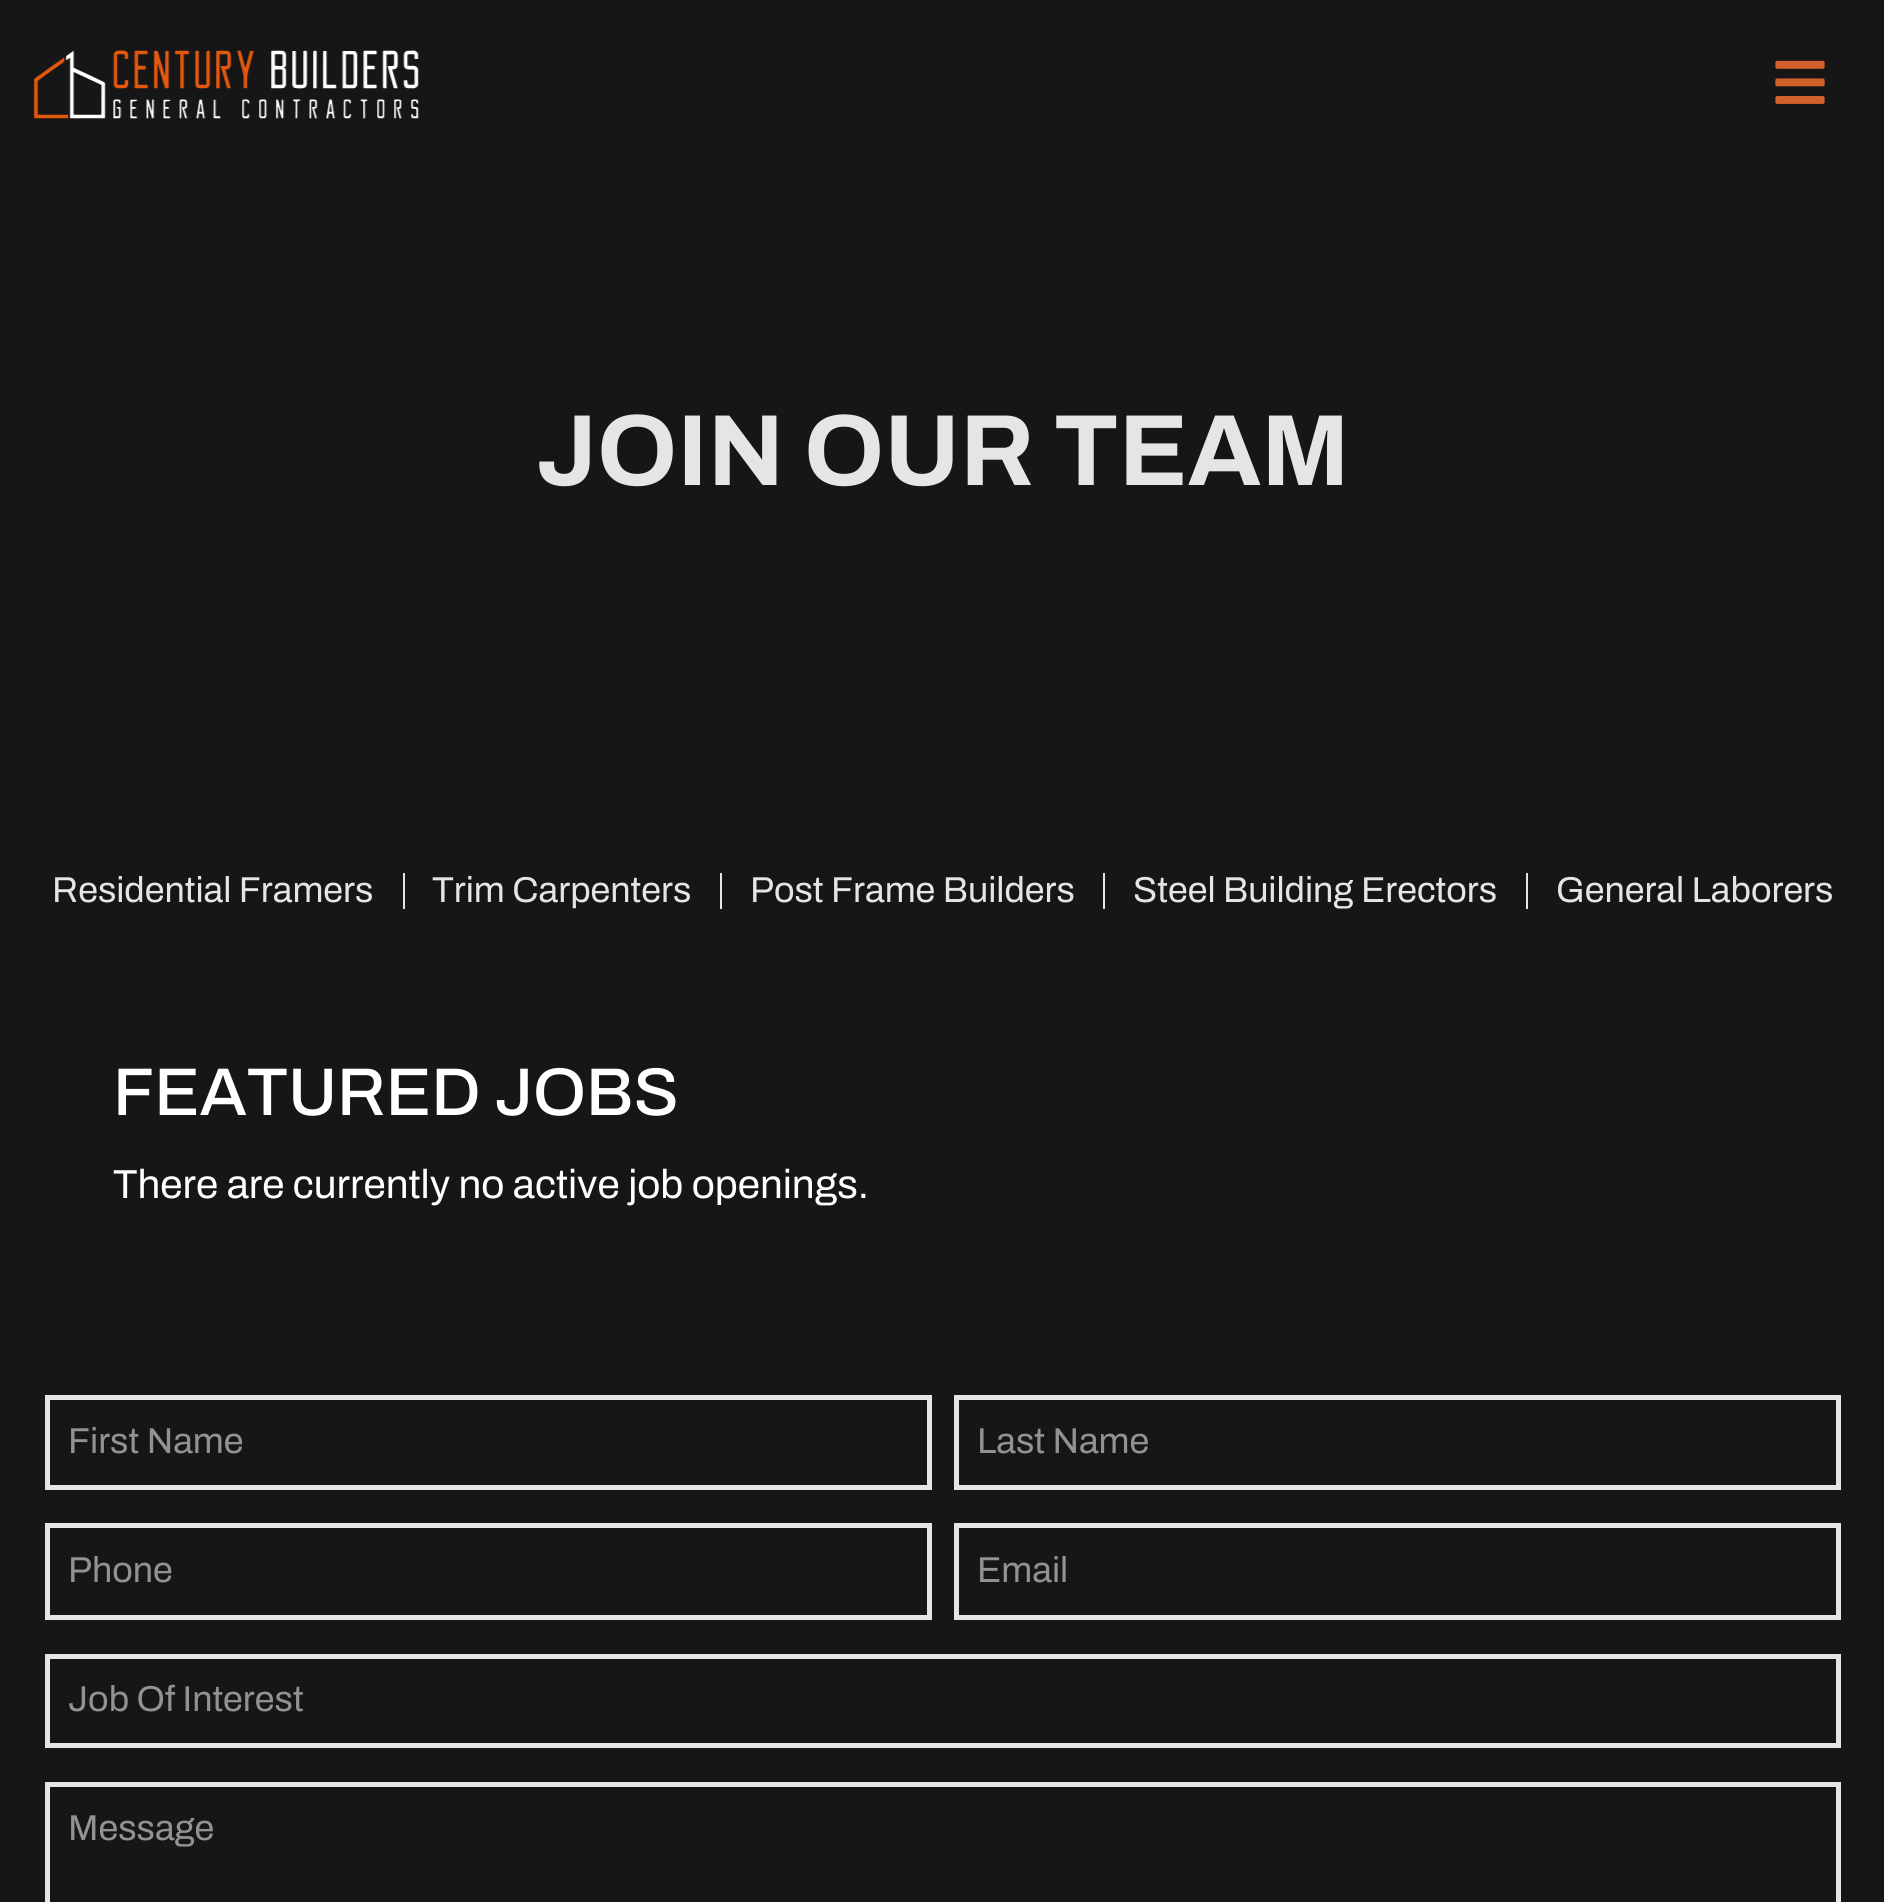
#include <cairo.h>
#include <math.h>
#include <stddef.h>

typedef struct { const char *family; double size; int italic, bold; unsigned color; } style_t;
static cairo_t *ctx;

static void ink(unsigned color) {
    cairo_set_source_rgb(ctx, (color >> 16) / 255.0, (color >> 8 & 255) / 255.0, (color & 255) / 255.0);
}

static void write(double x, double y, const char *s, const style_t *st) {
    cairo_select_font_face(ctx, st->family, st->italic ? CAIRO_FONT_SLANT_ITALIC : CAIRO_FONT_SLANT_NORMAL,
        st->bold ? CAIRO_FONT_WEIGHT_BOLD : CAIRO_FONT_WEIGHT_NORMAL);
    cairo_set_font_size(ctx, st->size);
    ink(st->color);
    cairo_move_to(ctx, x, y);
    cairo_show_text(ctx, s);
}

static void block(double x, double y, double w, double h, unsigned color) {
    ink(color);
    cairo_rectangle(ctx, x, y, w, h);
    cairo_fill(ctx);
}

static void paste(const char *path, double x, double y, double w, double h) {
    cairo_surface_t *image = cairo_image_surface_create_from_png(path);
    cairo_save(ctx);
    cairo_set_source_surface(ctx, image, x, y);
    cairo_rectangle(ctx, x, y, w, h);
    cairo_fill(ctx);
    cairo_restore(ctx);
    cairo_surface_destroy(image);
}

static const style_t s1 = {"Archivo", 101.25, 0, 1, 0xe4e5e5};
static const style_t s2 = {"Archivo", 36, 0, 0, 0xe4e5e5};
static const style_t s3 = {"Archivo Medium", 67.5, 0, 0, 0xffffff};
static const style_t s4 = {"Archivo", 40.5, 0, 0, 0xffffff};
static const style_t s5 = {"Archivo", 36, 0, 0, 0x929292};

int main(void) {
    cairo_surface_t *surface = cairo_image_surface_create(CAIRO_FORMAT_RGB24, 1884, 1902);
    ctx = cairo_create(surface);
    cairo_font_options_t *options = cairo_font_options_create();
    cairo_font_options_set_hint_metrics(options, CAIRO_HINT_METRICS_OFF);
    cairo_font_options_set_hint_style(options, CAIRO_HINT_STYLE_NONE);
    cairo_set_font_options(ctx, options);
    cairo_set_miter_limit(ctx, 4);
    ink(0x161616);
    cairo_paint(ctx);
    paste("pic1.png", 33, 50, 386, 69);
    paste("pic2.png", 1775, 60, 50, 44);
    write(536, 485, "JOIN OUR TEAM", &s1);
    write(52, 902, "Residential Framers", &s2);
    block(403, 873, 2, 36, 0xe4e5e5);
    write(432, 902, "Trim Carpenters", &s2);
    block(720, 873, 2, 36, 0xe4e5e5);
    write(750, 902, "Post Frame Builders", &s2);
    block(1103, 873, 2, 36, 0xe4e5e5);
    write(1133, 902, "Steel Building Erectors", &s2);
    block(1526, 873, 2, 36, 0xe4e5e5);
    write(1556, 902, "General Laborers", &s2);
    write(113, 1115, "FEATURED JOBS", &s3);
    write(113, 1198, "There are currently no active job openings.", &s4);
    cairo_rectangle(ctx, 47.5, 1397.5, 882, 90);
    ink(0xe4e5e5);
    cairo_set_line_width(ctx, 5);
    cairo_stroke(ctx);
    write(68, 1453, "First Name", &s5);
    cairo_rectangle(ctx, 956.5, 1397.5, 882, 90);
    ink(0xe4e5e5);
    cairo_stroke(ctx);
    write(977, 1453, "Last Name", &s5);
    cairo_rectangle(ctx, 47.5, 1525.5, 882, 92);
    ink(0xe4e5e5);
    cairo_stroke(ctx);
    write(68, 1582, "Phone", &s5);
    cairo_rectangle(ctx, 956.5, 1525.5, 882, 92);
    ink(0xe4e5e5);
    cairo_stroke(ctx);
    write(977, 1582, "Email", &s5);
    cairo_rectangle(ctx, 47.5, 1656.5, 1791, 89);
    ink(0xe4e5e5);
    cairo_stroke(ctx);
    write(68, 1711, "Job Of Interest", &s5);
    cairo_rectangle(ctx, 47.5, 1784.5, 1791, 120);
    ink(0xe4e5e5);
    cairo_stroke(ctx);
    write(68, 1840, "Message", &s5);
    cairo_surface_write_to_png(surface, "screenshot.png");
    cairo_font_options_destroy(options);
    cairo_destroy(ctx);
    cairo_surface_destroy(surface);
    return 0;
}
